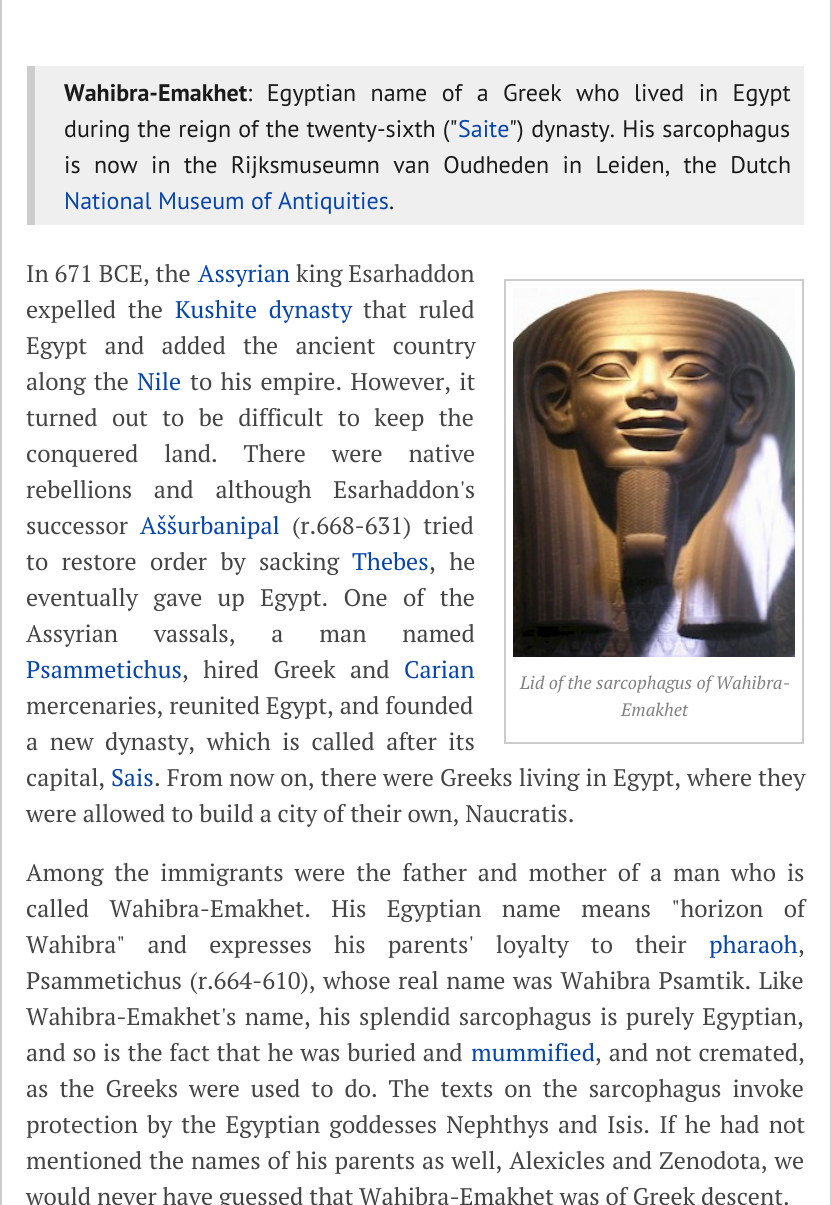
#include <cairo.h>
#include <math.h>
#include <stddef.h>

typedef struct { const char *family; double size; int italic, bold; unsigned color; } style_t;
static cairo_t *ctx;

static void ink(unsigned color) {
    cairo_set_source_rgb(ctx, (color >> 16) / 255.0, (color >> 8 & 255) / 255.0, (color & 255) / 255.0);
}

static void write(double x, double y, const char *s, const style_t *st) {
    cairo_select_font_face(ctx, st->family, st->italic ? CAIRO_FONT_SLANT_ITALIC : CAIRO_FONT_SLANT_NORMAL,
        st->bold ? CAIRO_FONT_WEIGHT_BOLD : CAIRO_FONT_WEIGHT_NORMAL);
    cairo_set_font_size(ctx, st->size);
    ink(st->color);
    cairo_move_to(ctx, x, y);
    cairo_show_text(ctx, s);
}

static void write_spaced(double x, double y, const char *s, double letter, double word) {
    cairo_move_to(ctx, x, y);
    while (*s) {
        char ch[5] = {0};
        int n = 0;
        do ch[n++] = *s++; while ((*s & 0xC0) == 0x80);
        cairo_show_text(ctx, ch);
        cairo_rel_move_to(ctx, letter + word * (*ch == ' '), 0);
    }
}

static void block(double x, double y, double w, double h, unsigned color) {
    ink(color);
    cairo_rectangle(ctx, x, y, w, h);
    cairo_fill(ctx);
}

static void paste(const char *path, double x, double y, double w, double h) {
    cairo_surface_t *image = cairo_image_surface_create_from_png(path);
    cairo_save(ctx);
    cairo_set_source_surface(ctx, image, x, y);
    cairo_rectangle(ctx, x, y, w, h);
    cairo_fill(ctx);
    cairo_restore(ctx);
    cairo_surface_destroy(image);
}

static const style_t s1 = {"PT Sans", 24, 0, 1, 0x1a1a1a};
static const style_t s2 = {"PT Sans", 24, 0, 0, 0x0645ad};
static const style_t s3 = {"PT Sans", 24, 0, 0, 0x1a1a1a};
static const style_t s4 = {"PT Serif", 24, 0, 0, 0x444444};
static const style_t s5 = {"PT Serif", 24, 0, 0, 0x0645ad};
static const style_t s6 = {"PT Serif", 18, 1, 0, 0x808080};

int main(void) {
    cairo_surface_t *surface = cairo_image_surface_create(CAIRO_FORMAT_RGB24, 831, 1205);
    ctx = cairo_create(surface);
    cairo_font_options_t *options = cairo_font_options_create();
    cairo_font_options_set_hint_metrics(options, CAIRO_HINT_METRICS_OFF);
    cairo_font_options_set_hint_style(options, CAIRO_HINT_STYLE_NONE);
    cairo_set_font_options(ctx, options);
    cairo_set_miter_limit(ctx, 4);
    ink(0xffffff);
    cairo_paint(ctx);
    block(830, 0, 1, 1205, 0xcccccc);
    block(0, 0, 2, 1205, 0xcccccc);
    block(35, 66, 769, 159, 0xefefef);
    block(27, 66, 8, 159, 0xcccccc);
    write(64, 101, "Wahibra-Emakhet", &s1);
    cairo_select_font_face(ctx, "PT Sans", CAIRO_FONT_SLANT_NORMAL, CAIRO_FONT_WEIGHT_NORMAL);
    write_spaced(247, 101, ": Egyptian name of a Greek who lived in Egypt", 0, 8);
    write_spaced(64, 137, "during the reign of the twenty-sixth (\"", 0, 0.75);
    write(458, 137, "Saite", &s2);
    ink(0x1a1a1a);
    write_spaced(509, 137, "\") dynasty. His sarcophagus", 0, 1);
    write_spaced(64, 173, "is now in the Rijksmuseumn van Oudheden in Leiden, the Dutch", 0, 7);
    write(64, 209, "National Museum of Antiquities", &s2);
    write(389, 209, ".", &s3);
    write(26, 282, "In 671 BCE, the", &s4);
    write(198, 282, "Assyrian", &s5);
    write(296, 282, "king Esarhaddon", &s4);
    write_spaced(26, 318, "expelled the", 0, 6);
    ink(0x0645ad);
    write_spaced(175, 318, "Kushite dynasty", 0, 6);
    ink(0x444444);
    write_spaced(363, 318, "that ruled", 0, 6);
    write_spaced(26, 354, "Egypt and added the ancient country", 0, 11.5);
    write_spaced(26, 390, "along the", 0, 2.5);
    write(137, 390, "Nile", &s5);
    ink(0x444444);
    write_spaced(190, 390, "to his empire. However, it", 0, 2.5);
    write_spaced(26, 426, "turned out to be difficult to keep the", 0, 8.5);
    write_spaced(26, 462, "conquered land. There were native", 0, 20);
    write_spaced(26, 498, "rebellions and although Esarhaddon's", 0, 16);
    write(26, 534, "successor", &s4);
    write(140, 534, "Aššurbanipal", &s5);
    ink(0x444444);
    write_spaced(292, 534, "(r.668-631) tried", 0, 6);
    write_spaced(26, 570, "to restore order by sacking", 0, 7.5);
    write(352, 570, "Thebes", &s5);
    ink(0x444444);
    write_spaced(429, 570, ", he", 0, 7.5);
    write_spaced(26, 606, "eventually gave up Egypt. One of the", 0, 9.5);
    write_spaced(26, 642, "Assyrian vassals, a man named", 0, 30);
    write(26, 678, "Psammetichus", &s5);
    ink(0x444444);
    write_spaced(182, 678, ", hired Greek and", 0, 8.5);
    write(404, 678, "Carian", &s5);
    write(26, 714, "mercenaries, reunited Egypt, and founded", &s4);
    write_spaced(26, 750, "a new dynasty, which is called after its", 0, 5.75);
    write(26, 786, "capital,", &s4);
    write(111, 786, "Sais", &s5);
    ink(0x444444);
    write_spaced(154, 786, ". From now on, there were Greeks living in Egypt, where they", 0, 0.25);
    write(26, 822, "were allowed to build a city of their own, Naucratis.", &s4);
    cairo_rectangle(ctx, 505, 280, 298, 463);
    ink(0xcccccc);
    cairo_stroke(ctx);
    paste("pic1.png", 513, 288, 282, 369);
    write(520, 689, "Lid of the sarcophagus of Wahibra-", &s6);
    write(621, 716, "Emakhet", &s6);
    cairo_select_font_face(ctx, "PT Serif", CAIRO_FONT_SLANT_NORMAL, CAIRO_FONT_WEIGHT_NORMAL);
    cairo_set_font_size(ctx, 24);
    ink(0x444444);
    write_spaced(26, 881, "Among the immigrants were the father and mother of a man who is", 0, 5.1);
    write_spaced(26, 917, "called Wahibra-Emakhet. His Egyptian name means \"horizon of", 0, 14.5);
    write_spaced(26, 953, "Wahibra\" and expresses his parents' loyalty to their", 0, 16.25);
    write(709, 953, "pharaoh", &s5);
    write(798, 953, ",", &s4);
    write_spaced(26, 989, "Psammetichus (r.664-610), whose real name was Wahibra Psamtik. Like", 0, 1.75);
    write_spaced(26, 1025, "Wahibra-Emakhet's name, his splendid sarcophagus is purely Egyptian,", 0, 2.5);
    write_spaced(26, 1061, "and so is the fact that he was buried and", 0, 1);
    write(471, 1061, "mummified", &s5);
    ink(0x444444);
    write_spaced(595, 1061, ", and not cremated,", 0, 1);
    write_spaced(26, 1097, "as the Greeks were used to do. The texts on the sarcophagus invoke", 0, 5.1);
    write_spaced(26, 1133, "protection by the Egyptian goddesses Nephthys and Isis. If he had not", 0, 3.25);
    write_spaced(26, 1169, "mentioned the names of his parents as well, Alexicles and Zenodota, we", 0, 1.1);
    write(26, 1205, "would never have guessed that Wahibra-Emakhet was of Greek descent.", &s4);
    cairo_surface_write_to_png(surface, "screenshot.png");
    cairo_font_options_destroy(options);
    cairo_destroy(ctx);
    cairo_surface_destroy(surface);
    return 0;
}
